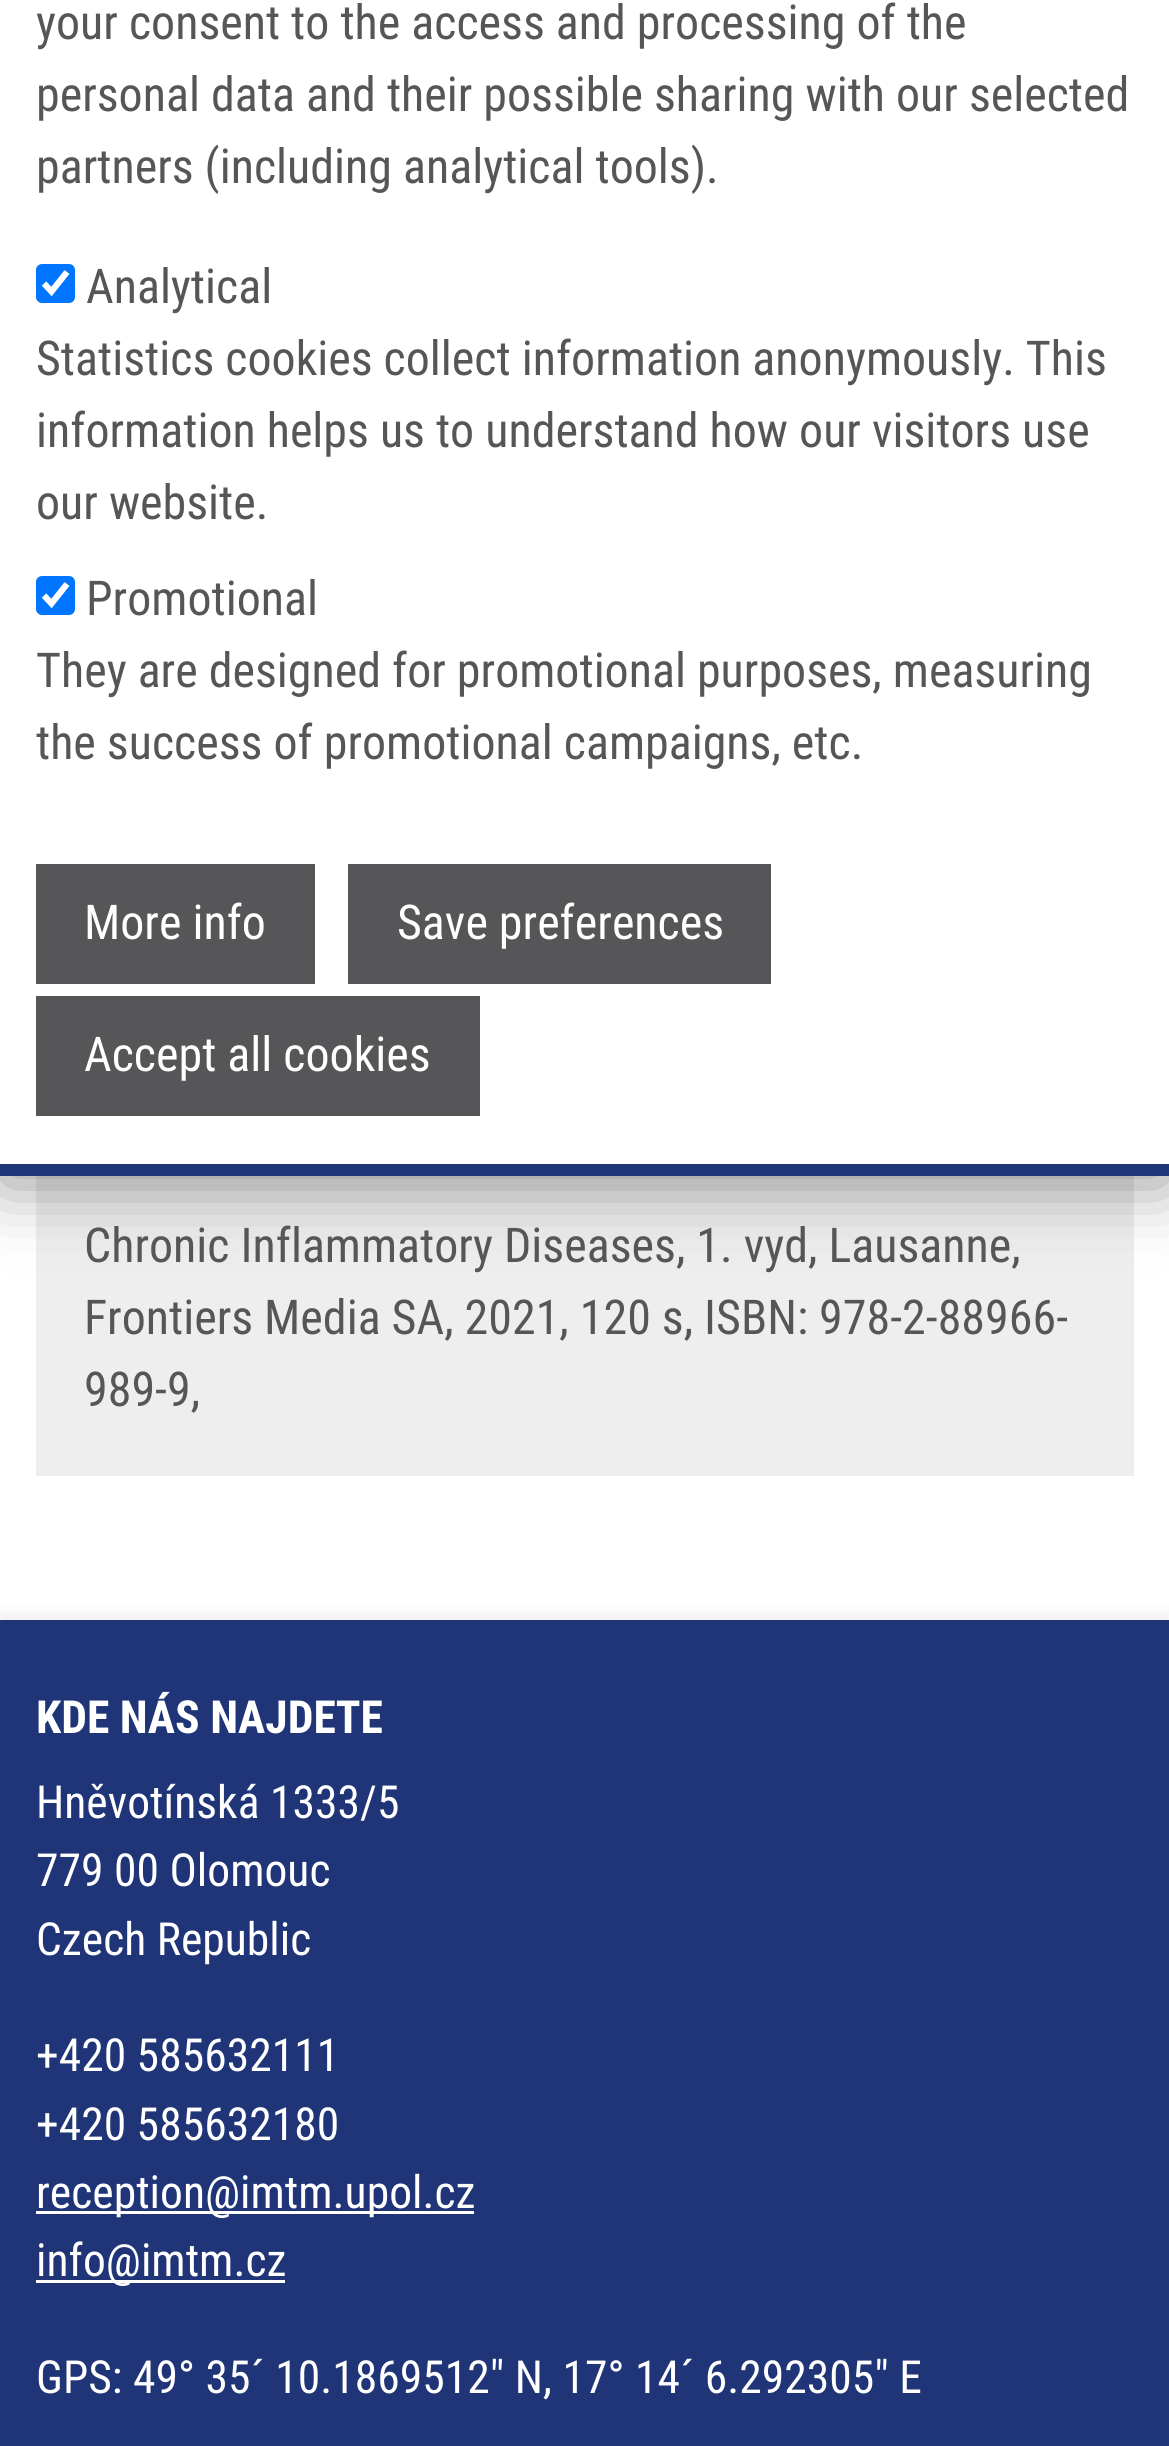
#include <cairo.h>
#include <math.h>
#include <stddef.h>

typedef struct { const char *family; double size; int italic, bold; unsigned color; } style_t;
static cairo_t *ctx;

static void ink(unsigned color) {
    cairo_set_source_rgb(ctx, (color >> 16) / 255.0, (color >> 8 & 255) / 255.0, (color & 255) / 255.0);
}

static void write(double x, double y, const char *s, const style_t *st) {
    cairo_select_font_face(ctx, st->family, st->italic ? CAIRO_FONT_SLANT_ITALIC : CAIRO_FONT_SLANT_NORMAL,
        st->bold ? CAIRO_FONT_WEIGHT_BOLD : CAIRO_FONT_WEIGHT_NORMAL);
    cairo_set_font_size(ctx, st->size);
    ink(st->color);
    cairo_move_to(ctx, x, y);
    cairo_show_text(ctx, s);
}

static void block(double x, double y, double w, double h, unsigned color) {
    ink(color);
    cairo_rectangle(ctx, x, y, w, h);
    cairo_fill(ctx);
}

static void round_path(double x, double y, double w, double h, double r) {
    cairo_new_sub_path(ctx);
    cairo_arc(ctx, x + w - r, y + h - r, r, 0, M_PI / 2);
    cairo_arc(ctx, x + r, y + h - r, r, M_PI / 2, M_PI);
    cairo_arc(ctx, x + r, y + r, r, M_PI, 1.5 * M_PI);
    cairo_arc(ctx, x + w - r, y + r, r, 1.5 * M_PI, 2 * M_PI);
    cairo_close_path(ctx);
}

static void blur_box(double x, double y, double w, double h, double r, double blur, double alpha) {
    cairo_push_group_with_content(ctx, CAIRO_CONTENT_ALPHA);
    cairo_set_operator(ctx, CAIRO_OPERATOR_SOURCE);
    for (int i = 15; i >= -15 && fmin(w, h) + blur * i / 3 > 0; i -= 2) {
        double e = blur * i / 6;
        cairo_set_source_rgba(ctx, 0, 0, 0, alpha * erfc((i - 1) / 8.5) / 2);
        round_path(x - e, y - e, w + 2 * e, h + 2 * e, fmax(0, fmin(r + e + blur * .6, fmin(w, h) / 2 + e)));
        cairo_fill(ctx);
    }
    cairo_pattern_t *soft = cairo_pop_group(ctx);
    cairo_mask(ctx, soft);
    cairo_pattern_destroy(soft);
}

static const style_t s1 = {"Roboto Condensed", 48, 0, 0, 0x565658};
static const style_t s2 = {"Roboto Condensed", 48, 0, 0, 0xffffff};
static const style_t s3 = {"Roboto Condensed", 45.6, 0, 1, 0xffffff};
static const style_t s4 = {"Roboto Condensed", 45.6, 0, 0, 0xffffff};

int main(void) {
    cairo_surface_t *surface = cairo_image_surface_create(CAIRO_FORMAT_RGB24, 1169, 2446);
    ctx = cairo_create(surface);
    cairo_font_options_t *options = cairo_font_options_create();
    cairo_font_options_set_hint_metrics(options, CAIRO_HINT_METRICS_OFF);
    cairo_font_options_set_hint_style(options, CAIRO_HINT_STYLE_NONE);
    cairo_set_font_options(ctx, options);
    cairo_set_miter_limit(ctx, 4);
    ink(0xffffff);
    cairo_paint(ctx);
    block(36, 1176, 1098, 300, 0xeeeeee);
    ink(0x000000);
    blur_box(0, -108, 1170, 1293, 0, 36, 0.4);
    block(0, 0, 1169, 1164, 0xffffff);
    block(0, 1164, 1169, 12, 0x203578);
    write(36, 39, "your consent to the access and processing of the", &s1);
    write(36, 111, "personal data and their possible sharing with our selected", &s1);
    write(36, 183, "partners (including analytical tools).", &s1);
    ink(0x0075ff);
    round_path(36, 264, 39, 39, 6);
    cairo_fill(ctx);
    cairo_new_path(ctx);
    cairo_move_to(ctx, 44, 283.5);
    cairo_line_to(ctx, 51.5, 291.5);
    cairo_line_to(ctx, 67, 272);
    ink(0xffffff);
    cairo_set_line_width(ctx, 6.2);
    cairo_stroke(ctx);
    write(86, 303, "Analytical", &s1);
    write(36, 375, "Statistics cookies collect information anonymously. This", &s1);
    write(36, 447, "information helps us to understand how our visitors use", &s1);
    write(36, 519, "our website.", &s1);
    ink(0x0075ff);
    round_path(36, 576, 39, 39, 6);
    cairo_fill(ctx);
    cairo_new_path(ctx);
    cairo_move_to(ctx, 44, 595.5);
    cairo_line_to(ctx, 51.5, 603.5);
    cairo_line_to(ctx, 67, 584);
    ink(0xffffff);
    cairo_stroke(ctx);
    write(86, 615, "Promotional", &s1);
    write(36, 687, "They are designed for promotional purposes, measuring", &s1);
    write(36, 759, "the success of promotional campaigns, etc.", &s1);
    block(36, 864, 279, 120, 0x565658);
    write(84, 939, "More info", &s2);
    block(348, 864, 423, 120, 0x565658);
    write(397, 939, "Save preferences", &s2);
    block(36, 996, 444, 120, 0x565658);
    write(84, 1071, "Accept all cookies", &s2);
    write(84, 1262, "Chronic Inflammatory Diseases, 1. vyd, Lausanne,", &s1);
    write(84, 1334, "Frontiers Media SA, 2021, 120 s, ISBN: 978-2-88966-", &s1);
    write(84, 1406, "989-9,", &s1);
    ink(0x000000);
    blur_box(0, 1611, 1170, 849, 0, 4.5, 0.05);
    block(0, 1620, 1169, 826, 0x203578);
    write(36, 1733, "KDE NÁS NAJDETE", &s3);
    write(36, 1818, "Hněvotínská 1333/5", &s4);
    write(36, 1886, "779 00 Olomouc", &s4);
    write(36, 1955, "Czech Republic", &s4);
    write(36, 2071, "+420 585632111", &s4);
    write(36, 2140, "+420 585632180", &s4);
    block(36, 2211, 438, 3, 0xffffff);
    write(36, 2208, "reception@imtm.upol.cz", &s4);
    block(36, 2280, 249, 3, 0xffffff);
    write(36, 2276, "info@imtm.cz", &s4);
    write(36, 2393, "GPS: 49° 35´ 10.1869512\" N, 17° 14´ 6.292305\" E", &s4);
    cairo_surface_write_to_png(surface, "screenshot.png");
    cairo_font_options_destroy(options);
    cairo_destroy(ctx);
    cairo_surface_destroy(surface);
    return 0;
}
